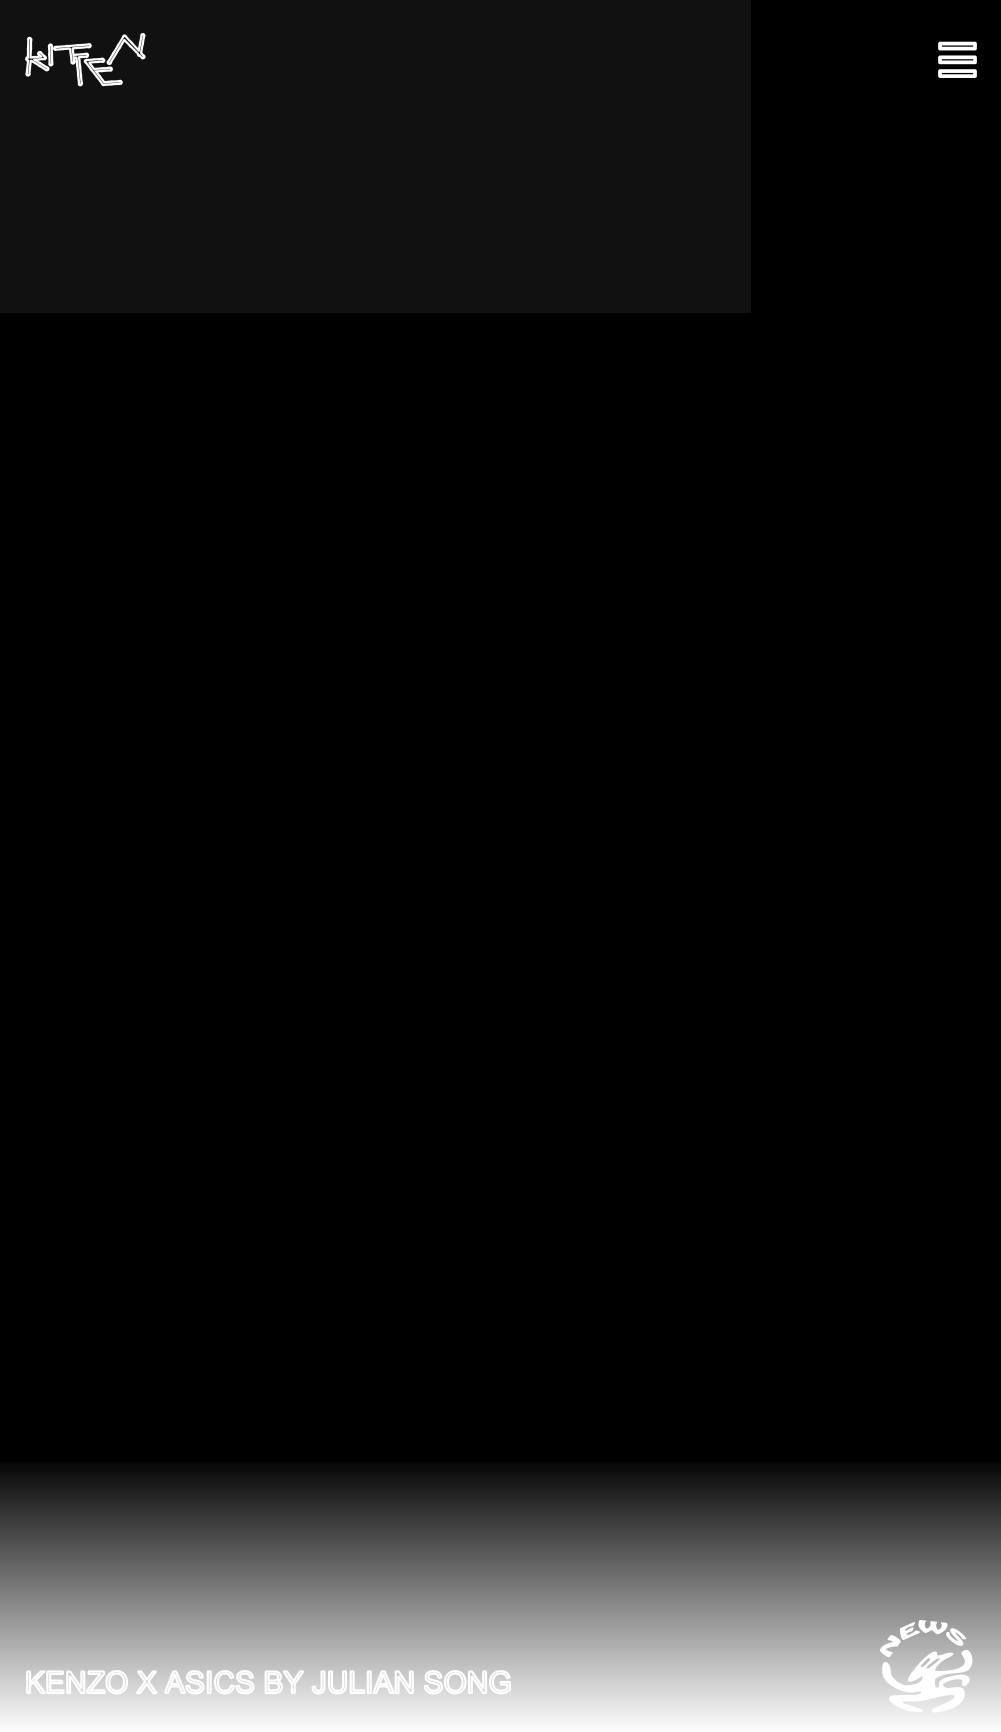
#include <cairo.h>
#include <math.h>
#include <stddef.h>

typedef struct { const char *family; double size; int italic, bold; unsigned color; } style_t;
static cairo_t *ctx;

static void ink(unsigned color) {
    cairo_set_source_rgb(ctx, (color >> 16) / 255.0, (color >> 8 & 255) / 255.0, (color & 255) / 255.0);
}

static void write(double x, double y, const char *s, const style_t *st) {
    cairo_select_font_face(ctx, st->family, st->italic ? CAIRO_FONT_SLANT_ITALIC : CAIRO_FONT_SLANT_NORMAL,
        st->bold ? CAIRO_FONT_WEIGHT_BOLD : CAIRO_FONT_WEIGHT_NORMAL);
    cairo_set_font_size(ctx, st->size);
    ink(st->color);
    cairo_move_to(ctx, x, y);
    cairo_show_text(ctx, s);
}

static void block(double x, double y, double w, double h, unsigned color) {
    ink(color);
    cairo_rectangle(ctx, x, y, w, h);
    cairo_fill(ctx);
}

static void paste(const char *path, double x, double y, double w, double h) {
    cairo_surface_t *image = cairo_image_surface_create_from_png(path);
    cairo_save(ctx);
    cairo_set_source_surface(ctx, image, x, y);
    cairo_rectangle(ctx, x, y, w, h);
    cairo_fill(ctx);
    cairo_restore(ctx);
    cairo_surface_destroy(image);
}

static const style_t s1 = {"Arial", 30, 0, 0, 0xffffff};

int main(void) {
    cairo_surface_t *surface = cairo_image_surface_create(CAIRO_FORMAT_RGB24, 1001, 1732);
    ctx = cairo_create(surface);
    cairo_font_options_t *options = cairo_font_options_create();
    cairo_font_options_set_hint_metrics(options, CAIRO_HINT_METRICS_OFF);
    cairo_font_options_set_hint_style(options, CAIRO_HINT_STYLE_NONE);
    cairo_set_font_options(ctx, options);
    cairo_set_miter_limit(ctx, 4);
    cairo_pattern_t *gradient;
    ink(0x000000);
    cairo_paint(ctx);
    block(0, 0, 751, 313, 0x111111);
    paste("pic1.png", 25, 33, 121, 54);
    paste("pic2.png", 938, 41, 39, 37);
    gradient = cairo_pattern_create_linear(501, 0, 501, 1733);
    cairo_pattern_add_color_stop_rgba(gradient, 0.84, 1, 1, 1, 0);
    cairo_pattern_add_color_stop_rgba(gradient, 1, 1, 1, 1, 1);
    cairo_set_source(ctx, gradient);
    cairo_pattern_destroy(gradient);
    cairo_rectangle(ctx, 0, 1462, 1001, 270);
    cairo_fill(ctx);
    write(25, 1693, "KENZO X ASICS BY JULIAN SONG", &s1);
    paste("pic3.png", 880, 1620, 93, 93);
    cairo_surface_write_to_png(surface, "screenshot.png");
    cairo_font_options_destroy(options);
    cairo_destroy(ctx);
    cairo_surface_destroy(surface);
    return 0;
}
